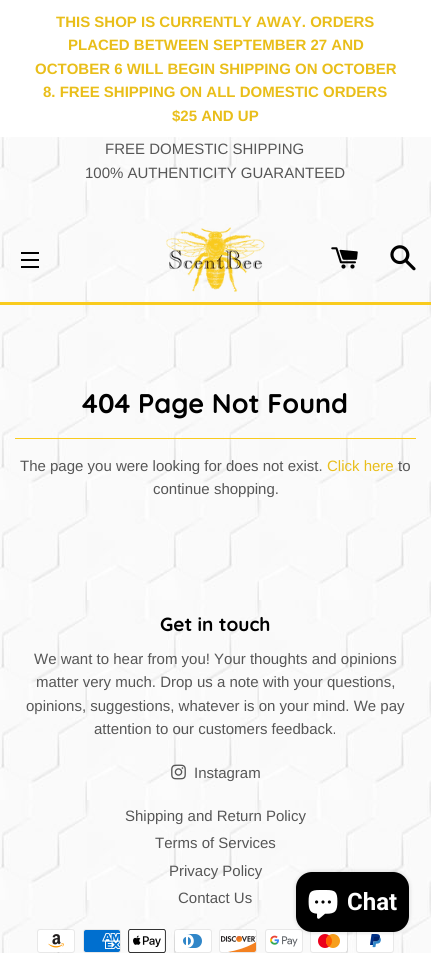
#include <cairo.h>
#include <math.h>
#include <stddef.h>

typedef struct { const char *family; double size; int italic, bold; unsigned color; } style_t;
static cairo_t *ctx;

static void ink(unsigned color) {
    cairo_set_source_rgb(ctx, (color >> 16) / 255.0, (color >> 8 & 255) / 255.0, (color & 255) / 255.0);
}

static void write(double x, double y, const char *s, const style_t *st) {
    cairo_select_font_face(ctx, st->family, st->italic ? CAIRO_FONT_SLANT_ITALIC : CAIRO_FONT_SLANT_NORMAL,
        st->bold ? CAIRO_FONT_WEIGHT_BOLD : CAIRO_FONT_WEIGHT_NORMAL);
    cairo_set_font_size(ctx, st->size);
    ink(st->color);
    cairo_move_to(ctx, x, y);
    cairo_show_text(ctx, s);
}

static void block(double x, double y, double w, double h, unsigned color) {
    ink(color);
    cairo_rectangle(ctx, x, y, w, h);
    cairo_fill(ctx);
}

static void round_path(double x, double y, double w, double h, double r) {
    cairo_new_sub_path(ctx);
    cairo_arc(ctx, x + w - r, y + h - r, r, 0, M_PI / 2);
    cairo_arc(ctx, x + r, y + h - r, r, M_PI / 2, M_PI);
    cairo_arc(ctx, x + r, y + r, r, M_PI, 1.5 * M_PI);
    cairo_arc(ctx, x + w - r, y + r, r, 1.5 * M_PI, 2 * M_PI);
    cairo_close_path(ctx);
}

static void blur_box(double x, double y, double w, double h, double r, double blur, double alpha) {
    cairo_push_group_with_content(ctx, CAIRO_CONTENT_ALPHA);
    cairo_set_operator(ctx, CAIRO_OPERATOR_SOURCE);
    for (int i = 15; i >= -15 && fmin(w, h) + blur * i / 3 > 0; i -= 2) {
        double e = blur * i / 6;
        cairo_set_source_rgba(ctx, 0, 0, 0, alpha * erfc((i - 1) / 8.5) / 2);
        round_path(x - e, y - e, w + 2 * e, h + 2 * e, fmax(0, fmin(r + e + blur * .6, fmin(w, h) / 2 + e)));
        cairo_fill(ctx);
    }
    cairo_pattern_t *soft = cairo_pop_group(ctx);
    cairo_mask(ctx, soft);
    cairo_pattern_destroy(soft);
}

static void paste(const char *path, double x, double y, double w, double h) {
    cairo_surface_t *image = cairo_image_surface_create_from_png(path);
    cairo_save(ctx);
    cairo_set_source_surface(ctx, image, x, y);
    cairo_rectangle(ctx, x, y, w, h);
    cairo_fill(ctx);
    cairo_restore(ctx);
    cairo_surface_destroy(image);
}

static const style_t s1 = {"Liberation Sans", 15, 0, 1, 0xe9be1a};
static const style_t s2 = {"Liberation Sans", 15, 0, 0, 0x565656};
static const style_t s3 = {"Quicksand", 27, 0, 1, 0x000000};
static const style_t s4 = {"Liberation Sans", 15, 0, 0, 0xe9be1a};
static const style_t s5 = {"Quicksand", 19, 0, 1, 0x000000};
static const style_t s6 = {"Roboto", 24, 0, 1, 0xffffff};

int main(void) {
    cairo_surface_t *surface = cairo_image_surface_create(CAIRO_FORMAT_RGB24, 431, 953);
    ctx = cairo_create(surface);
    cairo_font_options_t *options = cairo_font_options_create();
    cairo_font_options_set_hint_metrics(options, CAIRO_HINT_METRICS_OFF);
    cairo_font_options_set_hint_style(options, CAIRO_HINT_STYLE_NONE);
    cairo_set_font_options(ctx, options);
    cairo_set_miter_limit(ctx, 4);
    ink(0xffffff);
    cairo_paint(ctx);
    paste("pic1.png", 0, 137, 431, 816);
    block(0, 302, 431, 3, 0xf9cb1e);
    write(56, 27, "THIS SHOP IS CURRENTLY AWAY. ORDERS", &s1);
    write(68, 50, "PLACED BETWEEN SEPTEMBER 27 AND", &s1);
    write(35, 74, "OCTOBER 6 WILL BEGIN SHIPPING ON OCTOBER", &s1);
    write(43, 97, "8. FREE SHIPPING ON ALL DOMESTIC ORDERS", &s1);
    write(172, 121, "$25 AND UP", &s1);
    write(105, 154, "FREE DOMESTIC SHIPPING", &s2);
    write(85, 178, "100% AUTHENTICITY GUARANTEED", &s2);
    block(21, 252, 18, 2, 0x000000);
    block(21, 259, 18, 2, 0x000000);
    block(21, 266, 18, 2, 0x000000);
    paste("pic2.png", 166, 227, 99, 65);
    paste("pic3.png", 331, 247, 27, 22);
    paste("pic4.png", 390, 245, 26, 26);
    write(82, 413, "404 Page Not Found", &s3);
    block(15, 438, 401, 1, 0xf9cb1e);
    write(20, 471, "The page you were looking for does not exist.", &s2);
    write(327, 471, "Click here", &s4);
    write(398, 471, "to", &s2);
    write(153, 494, "continue shopping.", &s2);
    write(160, 631, "Get in touch", &s5);
    write(34, 664, "We want to hear from you! Your thoughts and opinions", &s2);
    write(36, 687, "matter very much. Drop us a note with your questions,", &s2);
    write(26, 711, "opinions, suggestions, whatever is on your mind. We pay", &s2);
    write(94, 734, "attention to our customers feedback.", &s2);
    paste("pic5.png", 171, 764, 15, 16);
    write(194, 778, "Instagram", &s2);
    write(125, 821, "Shipping and Return Policy", &s2);
    write(155, 848, "Terms of Services", &s2);
    write(169, 876, "Privacy Policy", &s2);
    write(178, 903, "Contact Us", &s2);
    paste("pic6.png", 37, 929, 38, 24);
    paste("pic7.png", 83, 929, 38, 24);
    paste("pic8.png", 128, 929, 38, 24);
    paste("pic9.png", 174, 929, 38, 24);
    paste("pic10.png", 219, 929, 38, 24);
    paste("pic11.png", 265, 929, 38, 24);
    paste("pic12.png", 310, 931, 38, 22);
    paste("pic13.png", 356, 931, 38, 22);
    ink(0x000000);
    blur_box(296, 872, 113, 60, 16, 2.5, 0.15);
    ink(0x000000);
    round_path(296, 872, 113, 60, 16);
    cairo_fill(ctx);
    paste("pic14.png", 308, 890, 30, 29);
    write(347, 910, "Chat", &s6);
    cairo_surface_write_to_png(surface, "screenshot.png");
    cairo_font_options_destroy(options);
    cairo_destroy(ctx);
    cairo_surface_destroy(surface);
    return 0;
}
